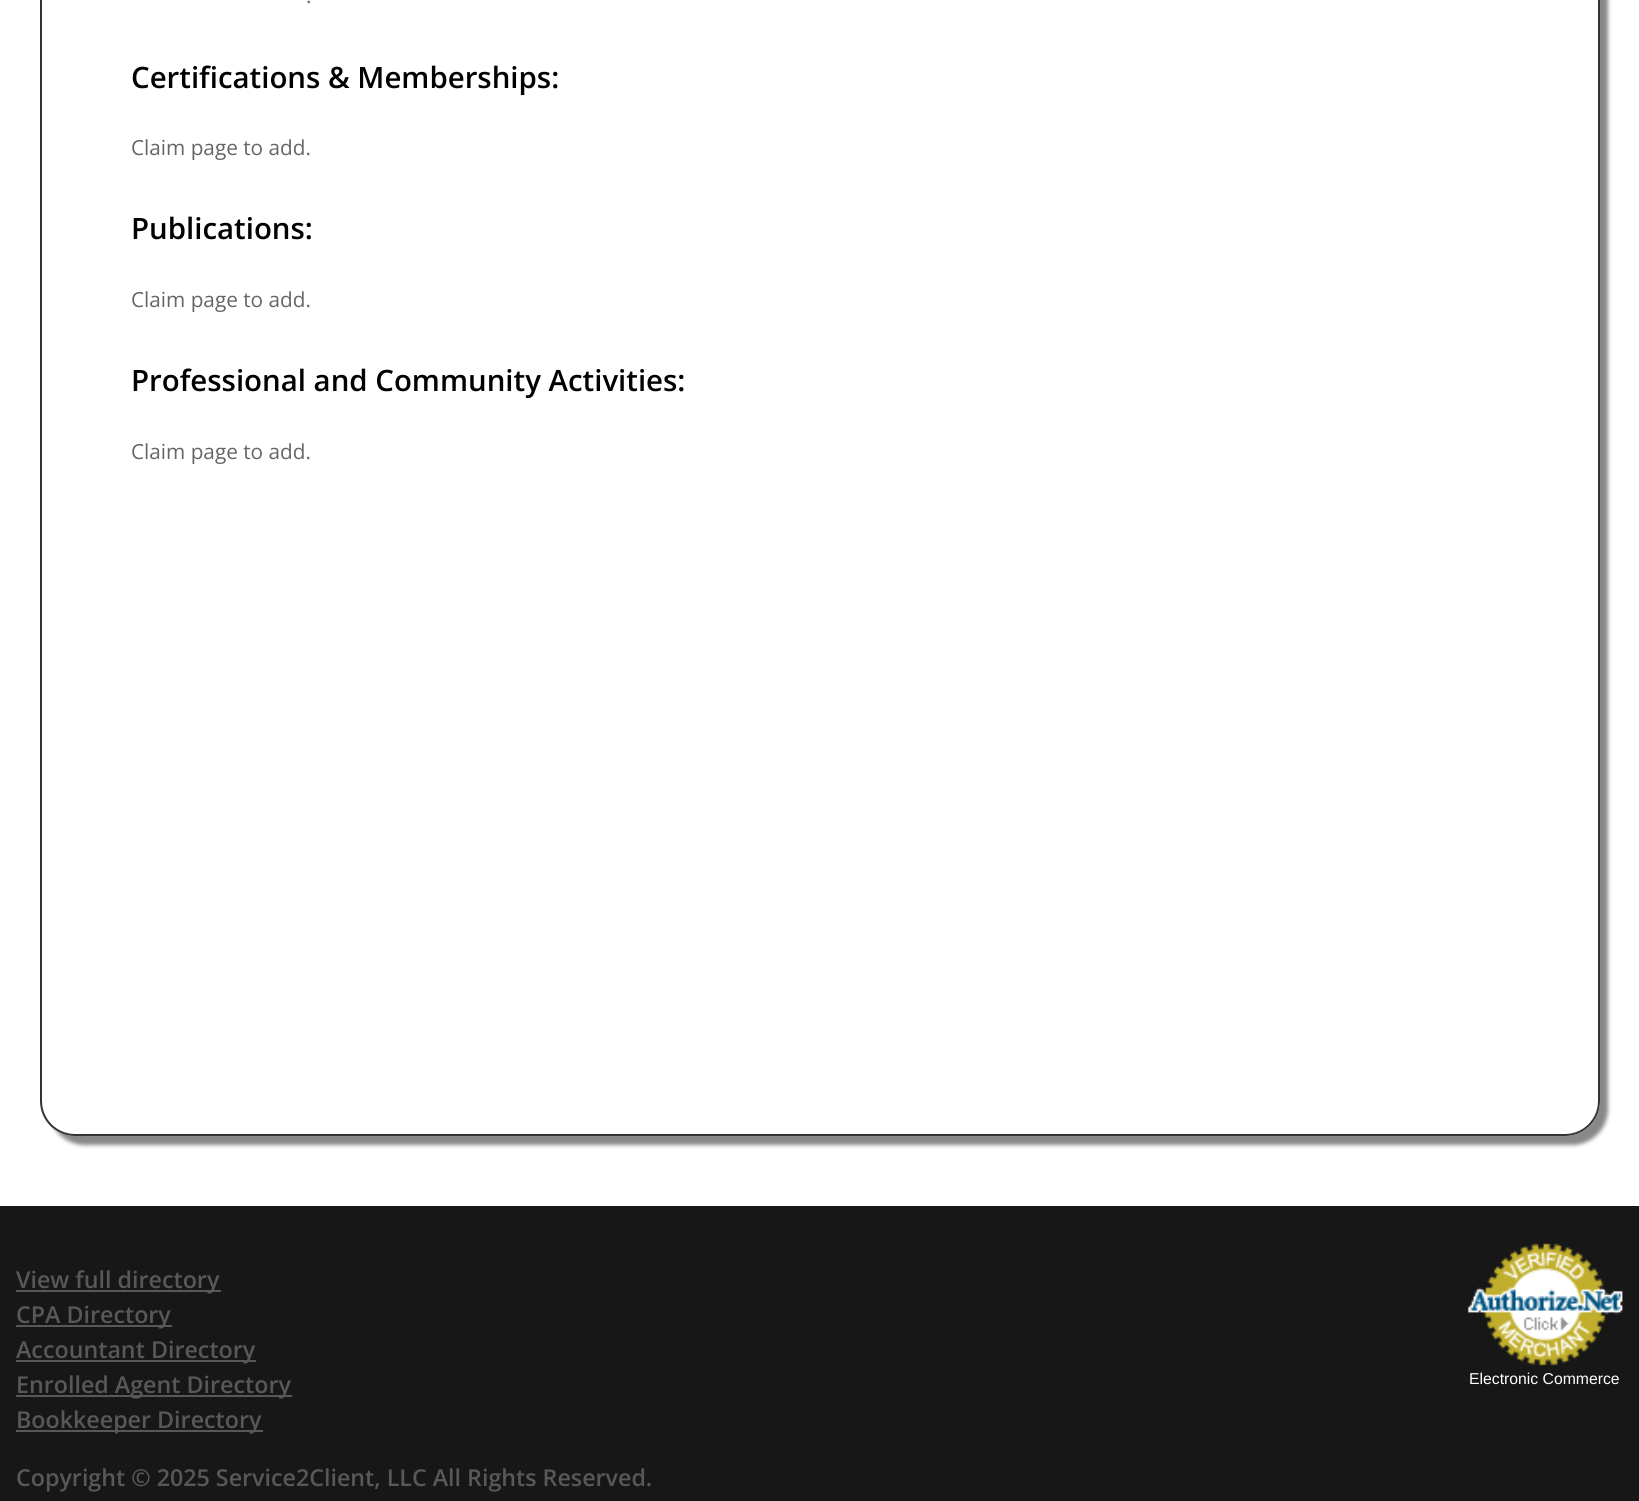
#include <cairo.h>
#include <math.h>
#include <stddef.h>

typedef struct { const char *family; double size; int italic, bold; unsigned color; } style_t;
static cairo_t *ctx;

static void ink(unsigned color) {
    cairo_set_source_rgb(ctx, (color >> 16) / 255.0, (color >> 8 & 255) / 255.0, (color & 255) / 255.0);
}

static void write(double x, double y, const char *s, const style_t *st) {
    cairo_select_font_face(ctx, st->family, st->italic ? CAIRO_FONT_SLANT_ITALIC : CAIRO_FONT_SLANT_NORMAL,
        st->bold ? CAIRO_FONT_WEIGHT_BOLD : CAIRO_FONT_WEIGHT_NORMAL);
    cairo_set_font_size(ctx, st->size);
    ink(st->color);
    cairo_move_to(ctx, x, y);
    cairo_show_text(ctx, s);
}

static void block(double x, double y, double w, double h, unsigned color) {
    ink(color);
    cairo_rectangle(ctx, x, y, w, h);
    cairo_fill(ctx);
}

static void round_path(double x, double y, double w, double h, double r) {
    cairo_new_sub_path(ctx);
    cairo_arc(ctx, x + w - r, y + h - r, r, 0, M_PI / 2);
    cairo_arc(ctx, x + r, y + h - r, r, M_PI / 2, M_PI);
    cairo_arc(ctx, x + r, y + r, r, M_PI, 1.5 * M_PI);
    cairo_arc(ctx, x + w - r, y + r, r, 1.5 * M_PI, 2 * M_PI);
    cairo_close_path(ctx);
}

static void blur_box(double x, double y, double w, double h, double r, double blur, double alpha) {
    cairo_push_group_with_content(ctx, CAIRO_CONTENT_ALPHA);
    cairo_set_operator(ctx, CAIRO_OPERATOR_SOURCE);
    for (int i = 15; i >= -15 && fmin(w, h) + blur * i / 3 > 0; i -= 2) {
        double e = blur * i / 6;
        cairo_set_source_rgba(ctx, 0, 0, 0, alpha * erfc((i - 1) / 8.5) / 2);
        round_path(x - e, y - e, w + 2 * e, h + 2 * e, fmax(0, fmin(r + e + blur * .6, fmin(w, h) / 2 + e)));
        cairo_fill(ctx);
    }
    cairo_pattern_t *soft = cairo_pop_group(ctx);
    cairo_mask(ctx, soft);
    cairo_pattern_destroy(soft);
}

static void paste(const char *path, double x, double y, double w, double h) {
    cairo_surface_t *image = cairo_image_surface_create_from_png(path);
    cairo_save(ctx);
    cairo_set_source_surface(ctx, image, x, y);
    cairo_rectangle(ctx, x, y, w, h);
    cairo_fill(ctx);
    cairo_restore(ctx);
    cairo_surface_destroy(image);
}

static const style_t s1 = {"Open Sans", 20.75, 0, 0, 0x666666};
static const style_t s2 = {"Open Sans SemiBold", 29.4, 0, 0, 0x000000};
static const style_t s3 = {"Open Sans SemiBold", 23.25, 0, 0, 0x585858};
static const style_t s4 = {"Liberation Sans", 15.75, 0, 0, 0xffffff};

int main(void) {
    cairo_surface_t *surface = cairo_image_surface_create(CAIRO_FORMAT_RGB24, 1639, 1501);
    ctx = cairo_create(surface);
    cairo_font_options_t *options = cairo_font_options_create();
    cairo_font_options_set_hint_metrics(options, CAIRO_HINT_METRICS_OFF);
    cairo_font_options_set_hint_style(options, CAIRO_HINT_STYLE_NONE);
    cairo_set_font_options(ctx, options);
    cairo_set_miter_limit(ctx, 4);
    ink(0xffffff);
    cairo_paint(ctx);
    cairo_save(ctx);
    cairo_set_fill_rule(ctx, CAIRO_FILL_RULE_EVEN_ODD);
    cairo_new_path(ctx);
    cairo_move_to(ctx, 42, 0);
    cairo_line_to(ctx, 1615, 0);
    cairo_line_to(ctx, 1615, 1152);
    cairo_line_to(ctx, 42, 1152);
    cairo_close_path(ctx);
    cairo_move_to(ctx, 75, -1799);
    cairo_line_to(ctx, 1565, -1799);
    cairo_curve_to(ctx, 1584.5, -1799, 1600, -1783.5, 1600, -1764);
    cairo_line_to(ctx, 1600, 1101);
    cairo_curve_to(ctx, 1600, 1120.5, 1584.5, 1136, 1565, 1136);
    cairo_line_to(ctx, 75, 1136);
    cairo_curve_to(ctx, 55.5, 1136, 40, 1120.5, 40, 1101);
    cairo_line_to(ctx, 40, -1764);
    cairo_curve_to(ctx, 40, -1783.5, 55.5, -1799, 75, -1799);
    cairo_close_path(ctx);
    cairo_clip(ctx);
    ink(0x888888);
    blur_box(49, -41, 1559, 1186, 35, 2, 1);
    cairo_restore(ctx);
    round_path(41, -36, 1558, 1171, 34);
    ink(0x333333);
    cairo_stroke(ctx);
    write(306, 3, ".", &s1);
    write(131, 88, "Certifications & Memberships:", &s2);
    write(131, 155, "Claim page to add.", &s1);
    write(131, 239, "Publications:", &s2);
    write(131, 307, "Claim page to add.", &s1);
    write(131, 391, "Professional and Community Activities:", &s2);
    write(131, 459, "Claim page to add.", &s1);
    block(0, 1206, 1639, 295, 0x171717);
    block(16, 1290, 205, 2, 0x585858);
    write(16, 1288, "View full directory", &s3);
    block(16, 1325, 156, 2, 0x585858);
    write(16, 1323, "CPA Directory", &s3);
    block(16, 1360, 240, 2, 0x585858);
    write(16, 1358, "Accountant Directory", &s3);
    block(16, 1395, 276, 2, 0x585858);
    write(16, 1393, "Enrolled Agent Directory", &s3);
    block(16, 1430, 247, 2, 0x585858);
    write(16, 1428, "Bookkeeper Directory", &s3);
    paste("pic1.png", 1467, 1243, 156, 123);
    write(1469, 1384, "Electronic Commerce", &s4);
    write(16, 1486, "Copyright © 2025 Service2Client, LLC All Rights Reserved.", &s3);
    cairo_surface_write_to_png(surface, "screenshot.png");
    cairo_font_options_destroy(options);
    cairo_destroy(ctx);
    cairo_surface_destroy(surface);
    return 0;
}
